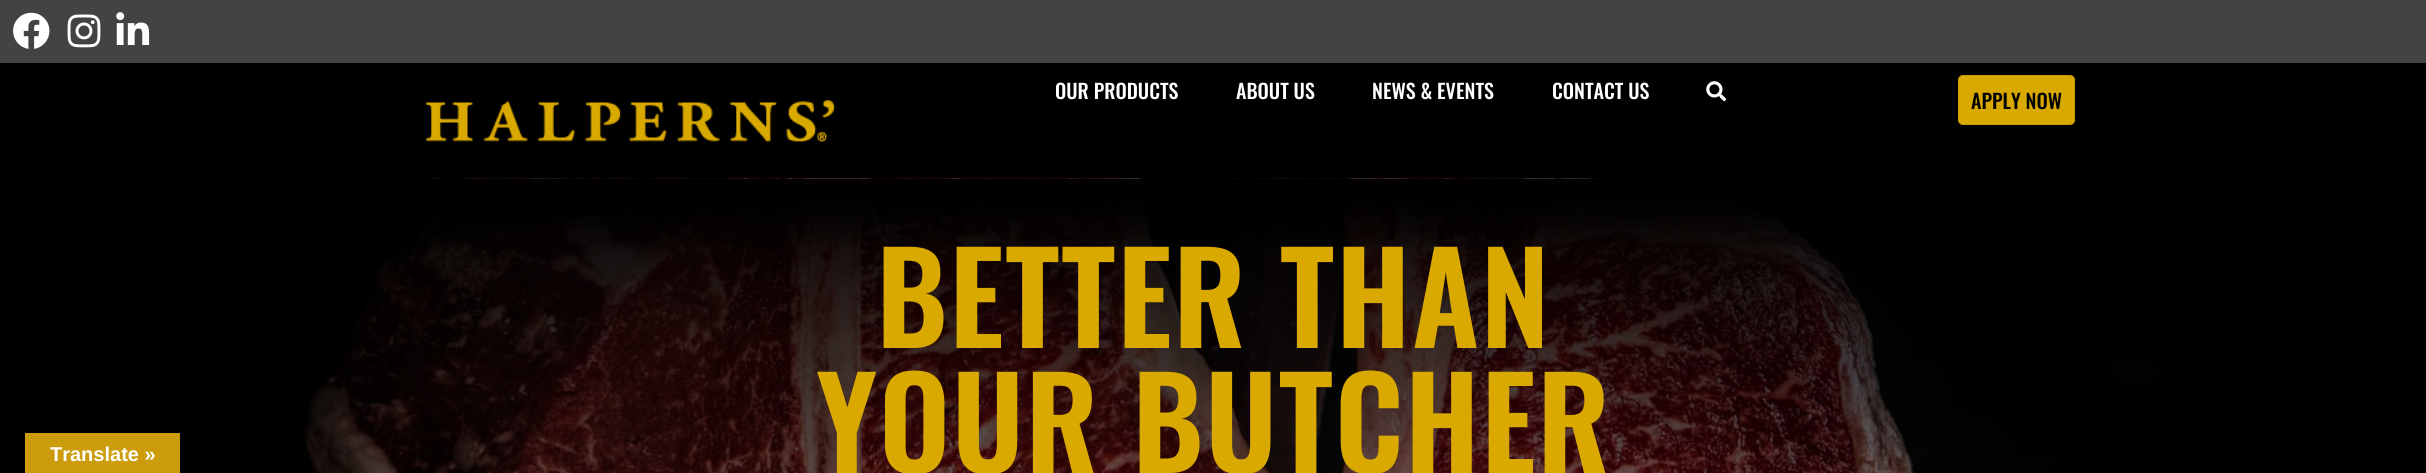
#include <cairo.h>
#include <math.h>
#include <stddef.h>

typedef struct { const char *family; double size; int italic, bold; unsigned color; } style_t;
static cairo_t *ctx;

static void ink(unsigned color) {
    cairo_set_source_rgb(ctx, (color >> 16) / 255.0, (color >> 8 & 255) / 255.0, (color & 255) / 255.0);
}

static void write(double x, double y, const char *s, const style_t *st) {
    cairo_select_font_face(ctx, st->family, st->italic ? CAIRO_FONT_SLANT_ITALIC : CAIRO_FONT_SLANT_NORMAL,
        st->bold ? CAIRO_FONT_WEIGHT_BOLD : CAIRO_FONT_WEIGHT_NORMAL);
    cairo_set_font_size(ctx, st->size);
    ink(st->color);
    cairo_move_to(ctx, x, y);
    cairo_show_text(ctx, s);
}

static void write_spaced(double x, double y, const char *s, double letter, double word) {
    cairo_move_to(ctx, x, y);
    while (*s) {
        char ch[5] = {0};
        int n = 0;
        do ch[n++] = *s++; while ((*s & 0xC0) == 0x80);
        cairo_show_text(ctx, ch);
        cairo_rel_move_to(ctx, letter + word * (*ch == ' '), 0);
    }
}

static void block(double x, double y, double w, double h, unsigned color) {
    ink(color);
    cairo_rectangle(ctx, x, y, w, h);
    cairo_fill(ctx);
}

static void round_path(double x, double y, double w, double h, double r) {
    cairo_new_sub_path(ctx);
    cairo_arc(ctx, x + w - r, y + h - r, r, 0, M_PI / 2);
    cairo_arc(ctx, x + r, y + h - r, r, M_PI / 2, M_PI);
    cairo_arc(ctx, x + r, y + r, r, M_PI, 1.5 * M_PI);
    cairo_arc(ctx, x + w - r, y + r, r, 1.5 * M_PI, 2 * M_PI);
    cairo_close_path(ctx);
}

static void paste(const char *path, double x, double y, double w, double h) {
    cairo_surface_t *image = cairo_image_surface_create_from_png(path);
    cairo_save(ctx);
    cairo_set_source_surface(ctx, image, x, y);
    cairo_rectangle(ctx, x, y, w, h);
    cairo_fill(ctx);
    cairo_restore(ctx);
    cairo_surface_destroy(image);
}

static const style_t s1 = {"Liberation Sans", 20, 0, 1, 0xffffff};
static const style_t s2 = {"Oswald Medium", 20, 0, 0, 0xffffff};
static const style_t s3 = {"Oswald Medium", 20, 0, 0, 0x000000};

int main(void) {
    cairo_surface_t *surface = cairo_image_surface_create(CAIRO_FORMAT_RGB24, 2426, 473);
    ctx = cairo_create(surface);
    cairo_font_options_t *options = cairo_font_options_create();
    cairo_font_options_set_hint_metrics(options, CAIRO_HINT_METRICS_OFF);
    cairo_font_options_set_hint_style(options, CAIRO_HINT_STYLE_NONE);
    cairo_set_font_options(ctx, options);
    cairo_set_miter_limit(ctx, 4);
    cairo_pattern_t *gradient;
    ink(0x434343);
    cairo_paint(ctx);
    block(0, 183, 2426, 290, 0x000000);
    block(0, 63, 2426, 116, 0x000000);
    paste("pic6.png", 302, 178, 1887, 295);
    gradient = cairo_pattern_create_linear(1213, 179, 1213, 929);
    cairo_pattern_add_color_stop_rgba(gradient, 0, 0, 0, 0, 1);
    cairo_pattern_add_color_stop_rgba(gradient, 1, 0, 0, 0, 0);
    cairo_set_source(ctx, gradient);
    cairo_pattern_destroy(gradient);
    cairo_rectangle(ctx, 0, 179, 2426, 294);
    cairo_fill(ctx);
    block(25, 433, 155, 40, 0xcc9c0c);
    write(50, 461, "Translate »", &s1);
    paste("pic1.png", 13, 12, 37, 37);
    paste("pic2.png", 67, 14, 34, 34);
    paste("pic3.png", 116, 12, 34, 33);
    paste("pic4.png", 426, 99, 410, 43);
    write(1055, 99, "OUR PRODUCTS", &s2);
    write(1236, 99, "ABOUT US", &s2);
    write(1372, 99, "NEWS & EVENTS", &s2);
    write(1552, 99, "CONTACT US", &s2);
    paste("pic5.png", 1706, 81, 21, 21);
    ink(0xdaa900);
    round_path(1958.5, 75.5, 116, 49, 4.5);
    cairo_fill_preserve(ctx);
    ink(0xce9d00);
    cairo_set_line_width(ctx, 1);
    cairo_stroke(ctx);
    write(1971, 109, "APPLY NOW", &s3);
    gradient = cairo_pattern_create_linear(1213, 179, 1213, 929);
    cairo_pattern_add_color_stop_rgba(gradient, 0, 0, 0, 0, 1);
    cairo_pattern_add_color_stop_rgba(gradient, 0.1, 0, 0, 0, 0);
    cairo_set_source(ctx, gradient);
    cairo_pattern_destroy(gradient);
    cairo_rectangle(ctx, 435, 186, 1361, 60);
    cairo_fill(ctx);
    cairo_select_font_face(ctx, "Oswald SemiBold", CAIRO_FONT_SLANT_NORMAL, CAIRO_FONT_WEIGHT_NORMAL);
    cairo_set_font_size(ctx, 125);
    ink(0xdaa900);
    write_spaced(876, 348, "BETTER THAN", 1.25, 0);
    write_spaced(816, 473, "YOUR BUTCHER", 1.25, 0);
    cairo_surface_write_to_png(surface, "screenshot.png");
    cairo_font_options_destroy(options);
    cairo_destroy(ctx);
    cairo_surface_destroy(surface);
    return 0;
}
